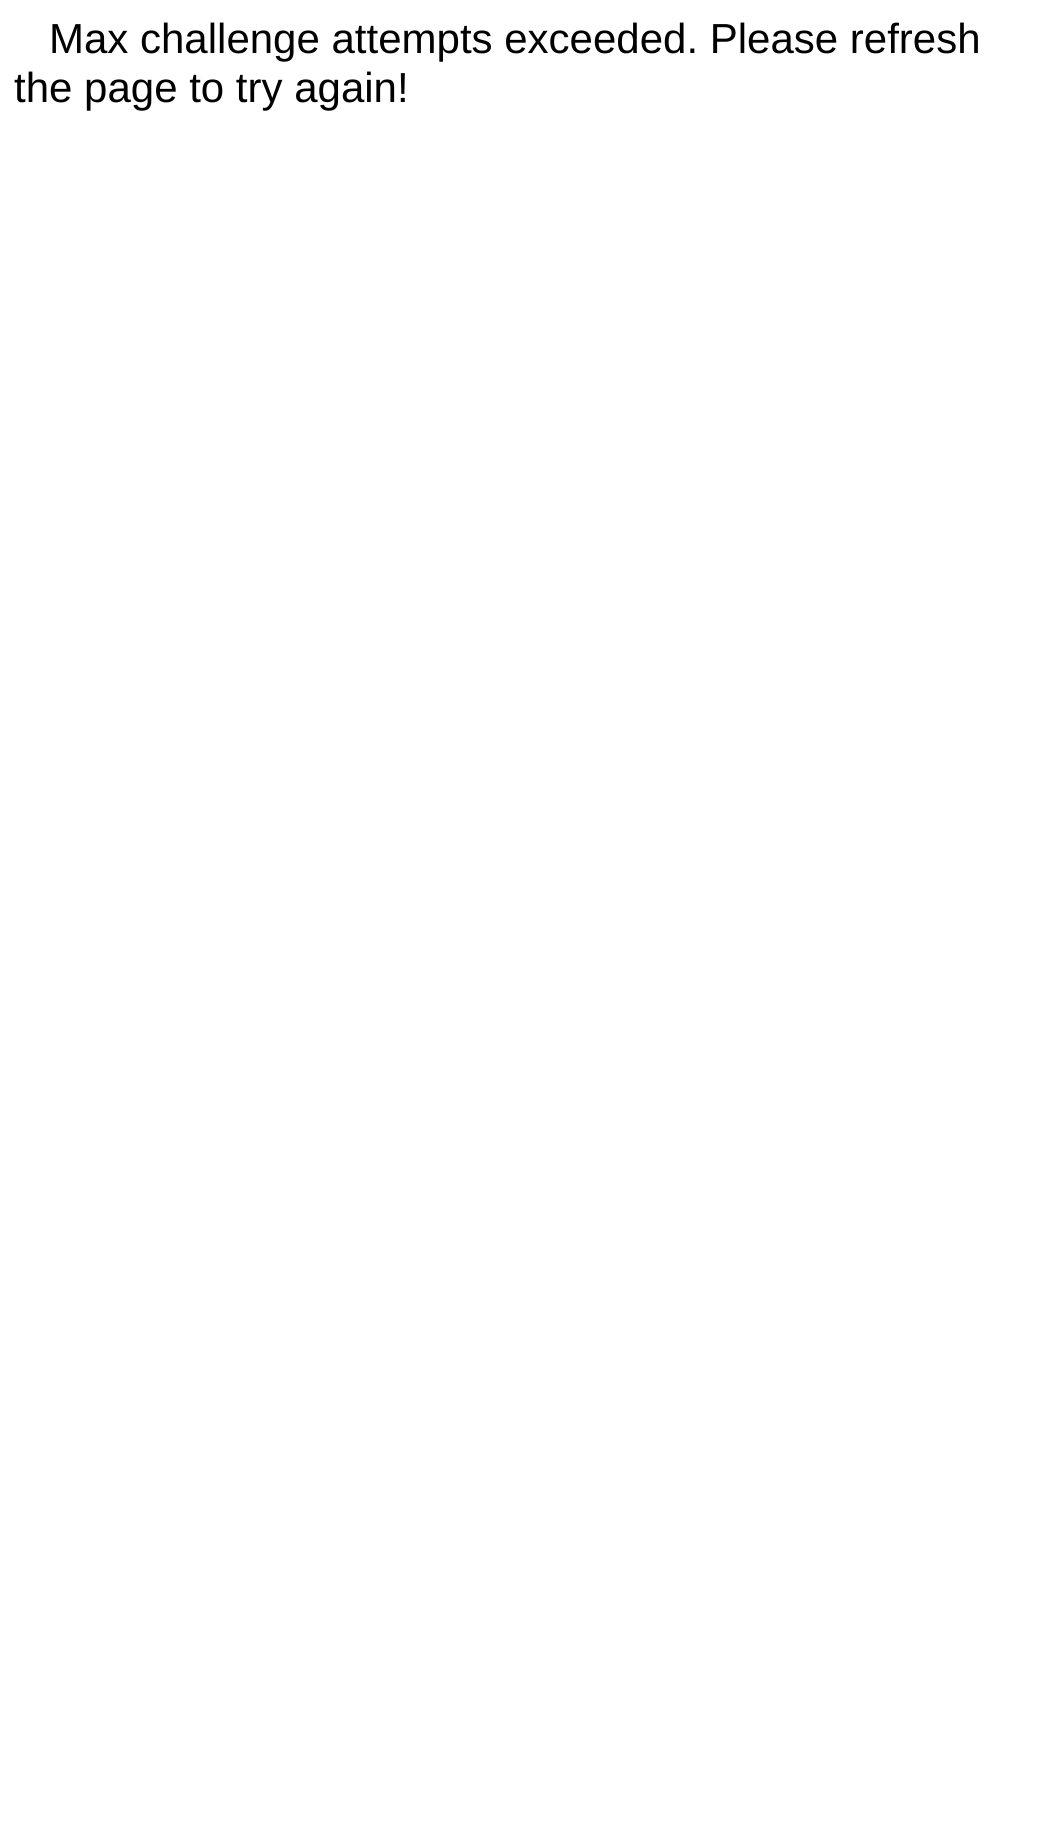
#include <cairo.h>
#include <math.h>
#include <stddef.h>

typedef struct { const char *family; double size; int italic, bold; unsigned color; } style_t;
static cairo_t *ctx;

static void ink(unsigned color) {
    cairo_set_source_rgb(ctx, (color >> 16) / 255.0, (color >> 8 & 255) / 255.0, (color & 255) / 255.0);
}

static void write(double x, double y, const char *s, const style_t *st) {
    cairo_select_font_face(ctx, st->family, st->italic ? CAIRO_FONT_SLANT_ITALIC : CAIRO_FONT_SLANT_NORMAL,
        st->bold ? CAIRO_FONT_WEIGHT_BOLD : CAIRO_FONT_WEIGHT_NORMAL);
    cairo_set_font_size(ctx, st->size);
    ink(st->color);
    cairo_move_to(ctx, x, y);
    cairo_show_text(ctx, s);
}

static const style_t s1 = {"Liberation Sans", 42, 0, 0, 0x000000};

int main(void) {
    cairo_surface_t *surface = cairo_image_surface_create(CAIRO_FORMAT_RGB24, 1059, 1824);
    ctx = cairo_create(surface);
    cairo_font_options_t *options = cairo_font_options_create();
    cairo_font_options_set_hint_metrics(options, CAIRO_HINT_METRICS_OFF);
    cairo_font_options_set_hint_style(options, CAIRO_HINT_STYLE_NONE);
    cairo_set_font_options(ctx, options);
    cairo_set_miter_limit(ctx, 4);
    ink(0xffffff);
    cairo_paint(ctx);
    write(49, 53, "Max challenge attempts exceeded. Please refresh", &s1);
    write(14, 102, "the page to try again!", &s1);
    cairo_surface_write_to_png(surface, "screenshot.png");
    cairo_font_options_destroy(options);
    cairo_destroy(ctx);
    cairo_surface_destroy(surface);
    return 0;
}
